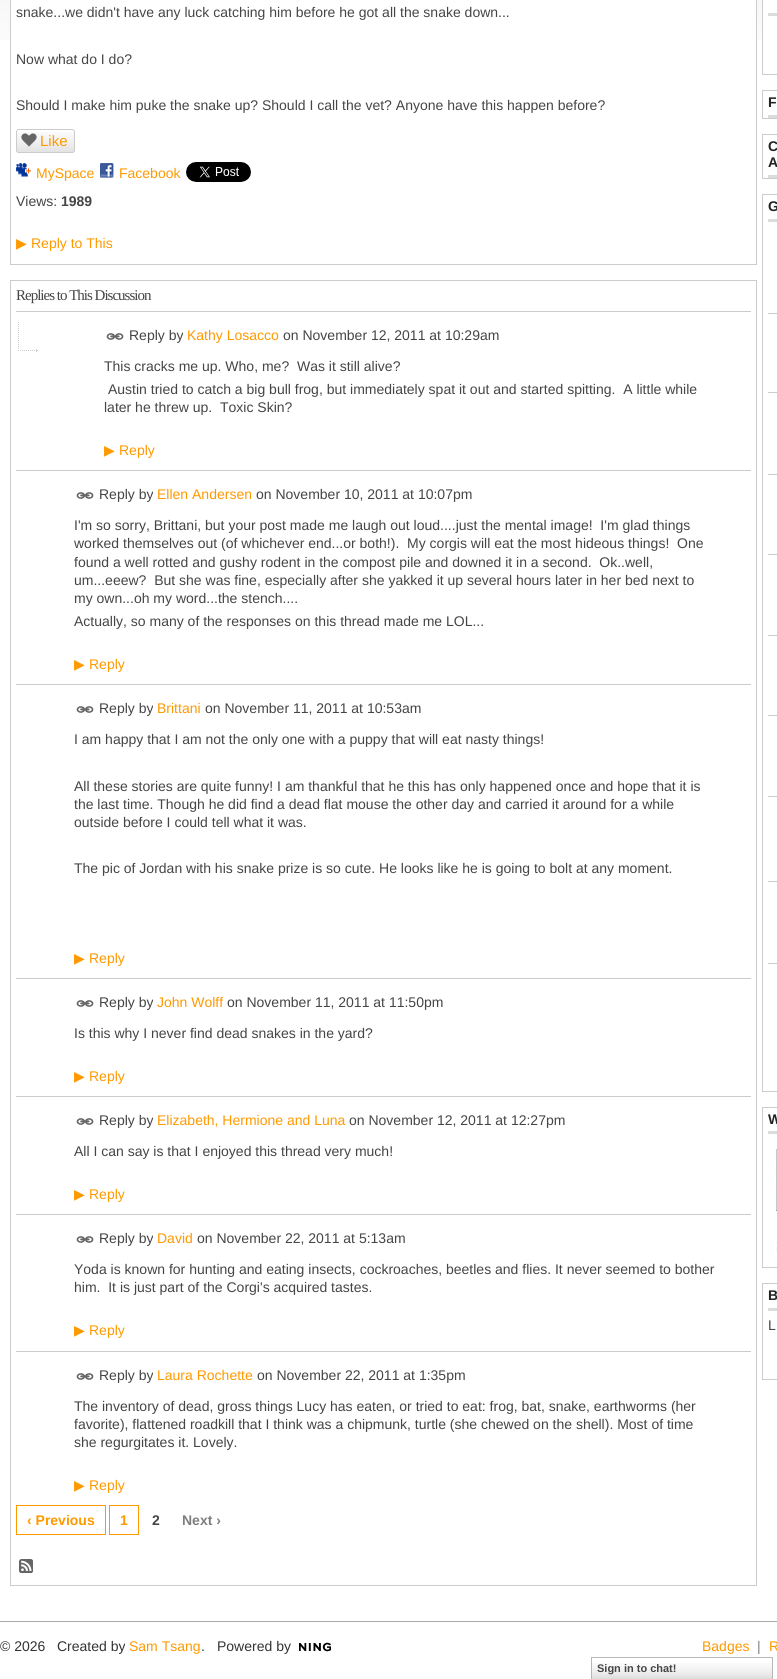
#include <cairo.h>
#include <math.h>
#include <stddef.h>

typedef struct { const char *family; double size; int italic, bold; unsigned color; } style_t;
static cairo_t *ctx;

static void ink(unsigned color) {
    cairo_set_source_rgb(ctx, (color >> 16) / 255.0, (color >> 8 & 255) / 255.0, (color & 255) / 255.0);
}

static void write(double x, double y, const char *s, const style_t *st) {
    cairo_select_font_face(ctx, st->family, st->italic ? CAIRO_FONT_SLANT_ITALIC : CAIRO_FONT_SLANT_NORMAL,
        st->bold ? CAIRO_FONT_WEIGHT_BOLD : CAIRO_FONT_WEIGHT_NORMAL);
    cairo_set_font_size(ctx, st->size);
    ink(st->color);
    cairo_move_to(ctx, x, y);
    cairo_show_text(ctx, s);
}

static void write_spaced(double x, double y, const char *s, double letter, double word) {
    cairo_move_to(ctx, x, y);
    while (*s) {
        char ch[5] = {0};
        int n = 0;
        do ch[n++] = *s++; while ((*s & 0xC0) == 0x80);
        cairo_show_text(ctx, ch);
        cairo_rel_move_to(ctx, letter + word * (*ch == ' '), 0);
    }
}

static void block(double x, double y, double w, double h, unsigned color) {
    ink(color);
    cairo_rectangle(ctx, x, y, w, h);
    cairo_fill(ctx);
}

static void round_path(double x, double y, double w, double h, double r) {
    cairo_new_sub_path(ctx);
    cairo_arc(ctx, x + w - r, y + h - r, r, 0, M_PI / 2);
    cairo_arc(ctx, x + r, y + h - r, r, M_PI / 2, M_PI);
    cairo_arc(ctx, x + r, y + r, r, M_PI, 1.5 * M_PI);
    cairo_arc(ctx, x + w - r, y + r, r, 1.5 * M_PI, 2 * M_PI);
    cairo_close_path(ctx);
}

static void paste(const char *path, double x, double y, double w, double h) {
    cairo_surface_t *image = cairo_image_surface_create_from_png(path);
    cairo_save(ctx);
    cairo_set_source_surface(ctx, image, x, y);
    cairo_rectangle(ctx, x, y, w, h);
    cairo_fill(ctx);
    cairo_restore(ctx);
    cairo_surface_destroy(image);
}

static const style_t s1 = {"Liberation Sans", 14, 0, 0, 0x454545};
static const style_t s2 = {"Liberation Sans", 15, 0, 0, 0xff9900};
static const style_t s3 = {"Liberation Sans", 14, 0, 0, 0xff9900};
static const style_t s4 = {"Liberation Sans", 14, 0, 1, 0x454545};
static const style_t s5 = {"DejaVu Sans", 14, 0, 0, 0xff9900};
static const style_t s6 = {"Liberation Sans", 14, 0, 1, 0xff9900};
static const style_t s7 = {"Liberation Sans", 14, 0, 1, 0x7f7f7f};
static const style_t s8 = {"Liberation Sans", 14, 0, 1, 0x222222};
static const style_t s9 = {"Liberation Sans", 14, 0, 0, 0x333333};
static const style_t s10 = {"Liberation Sans", 14, 0, 0, 0x7f7f7f};
static const style_t s11 = {"Liberation Sans", 11, 0, 1, 0x454545};

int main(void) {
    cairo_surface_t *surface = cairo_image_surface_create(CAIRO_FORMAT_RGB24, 777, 1679);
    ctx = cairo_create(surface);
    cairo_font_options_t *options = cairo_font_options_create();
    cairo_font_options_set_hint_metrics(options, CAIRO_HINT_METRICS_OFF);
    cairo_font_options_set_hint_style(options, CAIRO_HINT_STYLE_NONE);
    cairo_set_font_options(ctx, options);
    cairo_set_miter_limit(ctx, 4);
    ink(0xffffff);
    cairo_paint(ctx);
    paste("pic1.png", 0, 0, 762, 40);
    block(11, 0, 745, 40, 0xffffff);
    cairo_rectangle(ctx, 10.5, -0.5, 746, 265);
    ink(0xcccccc);
    cairo_set_line_width(ctx, 1);
    cairo_stroke(ctx);
    write(16, 17, "snake...we didn't have any luck catching him before he got all the snake down...", &s1);
    write(16, 64, "Now what do I do?", &s1);
    write(16, 110, "Should I make him puke the snake up? Should I call the vet? Anyone have this happen before?", &s1);
    paste("pic2.png", 16, 132, 59, 21);
    round_path(16.5, 129.5, 58, 23, 2.5);
    ink(0xcbcbcb);
    cairo_stroke(ctx);
    paste("pic3.png", 21, 133, 16, 14);
    write(40, 146, "Like", &s2);
    paste("pic4.png", 16, 163, 15, 14);
    write(36, 178, "MySpace", &s3);
    paste("pic5.png", 100, 163, 14, 15);
    write(119, 178, "Facebook", &s3);
    paste("pic6.png", 186, 162, 65, 20);
    write(16, 206, "Views:", &s1);
    write(61, 206, "1989", &s4);
    write(16, 248, "▶", &s5);
    write(31, 248, "Reply to This", &s3);
    cairo_rectangle(ctx, 10.5, 280.5, 746, 1305);
    ink(0xcccccc);
    cairo_stroke(ctx);
    cairo_select_font_face(ctx, "Liberation Serif", CAIRO_FONT_SLANT_NORMAL, CAIRO_FONT_WEIGHT_NORMAL);
    cairo_set_font_size(ctx, 15);
    ink(0x454545);
    write_spaced(16, 300, "Replies to This Discussion", -1, 0);
    paste("pic7.png", 18, 322, 20, 30);
    block(16, 311, 735, 1, 0xcbcbcb);
    paste("pic8.png", 106, 333, 18, 7);
    write(129, 340, "Reply by", &s1);
    write(187, 340, "Kathy Losacco", &s3);
    write(283, 340, "on November 12, 2011 at 10:29am", &s1);
    write(104, 371, "This cracks me up. Who, me?  Was it still alive?", &s1);
    write(108, 394, "Austin tried to catch a big bull frog, but immediately spat it out and started spitting.  A little while", &s1);
    write(104, 412, "later he threw up.  Toxic Skin?", &s1);
    write(104, 455, "▶", &s5);
    write(119, 455, "Reply", &s3);
    block(16, 470, 735, 1, 0xcbcbcb);
    paste("pic8.png", 76, 492, 18, 7);
    write(99, 499, "Reply by", &s1);
    write(157, 499, "Ellen Andersen", &s3);
    write(256, 499, "on November 10, 2011 at 10:07pm", &s1);
    write(74, 530, "I'm so sorry, Brittani, but your post made me laugh out loud....just the mental image!  I'm glad things", &s1);
    write(74, 548, "worked themselves out (of whichever end...or both!).  My corgis will eat the most hideous things!  One", &s1);
    write(74, 567, "found a well rotted and gushy rodent in the compost pile and downed it in a second.  Ok..well,", &s1);
    write(74, 585, "um...eeew?  But she was fine, especially after she yakked it up several hours later in her bed next to", &s1);
    write(74, 603, "my own...oh my word...the stench....", &s1);
    write(74, 626, "Actually, so many of the responses on this thread made me LOL...", &s1);
    write(74, 669, "▶", &s5);
    write(89, 669, "Reply", &s3);
    block(16, 684, 735, 1, 0xcbcbcb);
    paste("pic8.png", 76, 706, 18, 7);
    write(99, 713, "Reply by", &s1);
    write(157, 713, "Brittani", &s3);
    write(205, 713, "on November 11, 2011 at 10:53am", &s1);
    write(74, 744, "I am happy that I am not the only one with a puppy that will eat nasty things!", &s1);
    write(74, 791, "All these stories are quite funny! I am thankful that he this has only happened once and hope that it is", &s1);
    write(74, 809, "the last time. Though he did find a dead flat mouse the other day and carried it around for a while", &s1);
    write(74, 827, "outside before I could tell what it was.", &s1);
    write(74, 873, "The pic of Jordan with his snake prize is so cute. He looks like he is going to bolt at any moment.", &s1);
    write(74, 963, "▶", &s5);
    write(89, 963, "Reply", &s3);
    block(16, 978, 735, 1, 0xcbcbcb);
    paste("pic8.png", 76, 1000, 18, 7);
    write(99, 1007, "Reply by", &s1);
    write(157, 1007, "John Wolff", &s3);
    write(227, 1007, "on November 11, 2011 at 11:50pm", &s1);
    write(74, 1038, "Is this why I never find dead snakes in the yard?", &s1);
    write(74, 1081, "▶", &s5);
    write(89, 1081, "Reply", &s3);
    block(16, 1096, 735, 1, 0xcbcbcb);
    paste("pic8.png", 76, 1118, 18, 7);
    write(99, 1125, "Reply by", &s1);
    write(157, 1125, "Elizabeth, Hermione and Luna", &s3);
    write(349, 1125, "on November 12, 2011 at 12:27pm", &s1);
    write(74, 1156, "All I can say is that I enjoyed this thread very much!", &s1);
    write(74, 1199, "▶", &s5);
    write(89, 1199, "Reply", &s3);
    block(16, 1214, 735, 1, 0xcbcbcb);
    paste("pic8.png", 76, 1236, 18, 7);
    write(99, 1243, "Reply by", &s1);
    write(157, 1243, "David", &s3);
    write(197, 1243, "on November 22, 2011 at 5:13am", &s1);
    write(74, 1274, "Yoda is known for hunting and eating insects, cockroaches, beetles and flies. It never seemed to bother", &s1);
    write(74, 1292, "him.  It is just part of the Corgi's acquired tastes.", &s1);
    write(74, 1335, "▶", &s5);
    write(89, 1335, "Reply", &s3);
    block(16, 1351, 735, 1, 0xcbcbcb);
    paste("pic8.png", 76, 1373, 18, 7);
    write(99, 1380, "Reply by", &s1);
    write(157, 1380, "Laura Rochette", &s3);
    write(257, 1380, "on November 22, 2011 at 1:35pm", &s1);
    write(74, 1411, "The inventory of dead, gross things Lucy has eaten, or tried to eat: frog, bat, snake, earthworms (her", &s1);
    write(74, 1429, "favorite), flattened roadkill that I think was a chipmunk, turtle (she chewed on the shell). Most of time", &s1);
    write(74, 1447, "she regurgitates it. Lovely.", &s1);
    write(74, 1490, "▶", &s5);
    write(89, 1490, "Reply", &s3);
    cairo_rectangle(ctx, 16.5, 1505.5, 89, 29);
    cairo_stroke(ctx);
    write(27, 1525, "‹ Previous", &s6);
    cairo_rectangle(ctx, 109.5, 1505.5, 29, 29);
    cairo_stroke(ctx);
    write(120, 1525, "1", &s6);
    write(152, 1525, "2", &s4);
    write(182, 1525, "Next ›", &s7);
    paste("pic9.png", 19, 1559, 14, 14);
    cairo_rectangle(ctx, 762.5, -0.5, 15, 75);
    ink(0xcccccc);
    cairo_stroke(ctx);
    block(768, 13, 9, 3, 0xdcdcdc);
    cairo_rectangle(ctx, 762.5, 90.5, 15, 28);
    ink(0xcccccc);
    cairo_stroke(ctx);
    block(768, 115, 9, 3, 0xdcdcdc);
    write(768, 107, "F", &s8);
    cairo_rectangle(ctx, 762.5, 134.5, 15, 44);
    ink(0xcccccc);
    cairo_stroke(ctx);
    block(768, 175, 9, 3, 0xdcdcdc);
    write(768, 151, "C", &s8);
    write(768, 167, "A", &s8);
    cairo_rectangle(ctx, 762.5, 194.5, 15, 897);
    ink(0xcccccc);
    cairo_stroke(ctx);
    block(768, 219, 9, 3, 0xdcdcdc);
    write(768, 211, "G", &s8);
    block(768, 313, 9, 1, 0xcbcbcb);
    block(768, 392, 9, 1, 0xcbcbcb);
    block(768, 474, 9, 1, 0xcbcbcb);
    block(768, 554, 9, 1, 0xcbcbcb);
    block(768, 635, 9, 1, 0xcbcbcb);
    block(768, 715, 9, 1, 0xcbcbcb);
    block(768, 796, 9, 1, 0xcbcbcb);
    block(768, 881, 9, 1, 0xcbcbcb);
    block(768, 963, 9, 1, 0xcbcbcb);
    cairo_rectangle(ctx, 762.5, 1107.5, 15, 160);
    ink(0xcccccc);
    cairo_stroke(ctx);
    block(768, 1131, 9, 3, 0xdcdcdc);
    write(768, 1124, "W", &s8);
    paste("pic10.png", 776, 1149, 1, 62);
    paste("pic11.png", 776, 1241, 1, 10);
    cairo_rectangle(ctx, 762.5, 1283.5, 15, 96);
    ink(0xcccccc);
    cairo_stroke(ctx);
    block(768, 1308, 9, 3, 0xdcdcdc);
    write(768, 1300, "B", &s8);
    write(768, 1330, "L", &s1);
    block(0, 1621, 777, 1, 0xaaaaaa);
    write(0, 1651, "© 2026", &s9);
    write(57, 1651, "Created by", &s9);
    write(129, 1651, "Sam Tsang", &s3);
    write(201, 1651, ".", &s9);
    write(217, 1651, "Powered by", &s9);
    paste("pic12.png", 299, 1642, 32, 10);
    write(702, 1651, "Badges", &s3);
    write(757, 1651, "|", &s10);
    write(769, 1651, "R", &s3);
    paste("pic13.png", 592, 1663, 180, 16);
    cairo_rectangle(ctx, 591.5, 1657.5, 181, 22);
    ink(0xb7b7b7);
    cairo_stroke(ctx);
    write(597, 1672, "Sign in to chat!", &s11);
    cairo_surface_write_to_png(surface, "screenshot.png");
    cairo_font_options_destroy(options);
    cairo_destroy(ctx);
    cairo_surface_destroy(surface);
    return 0;
}
